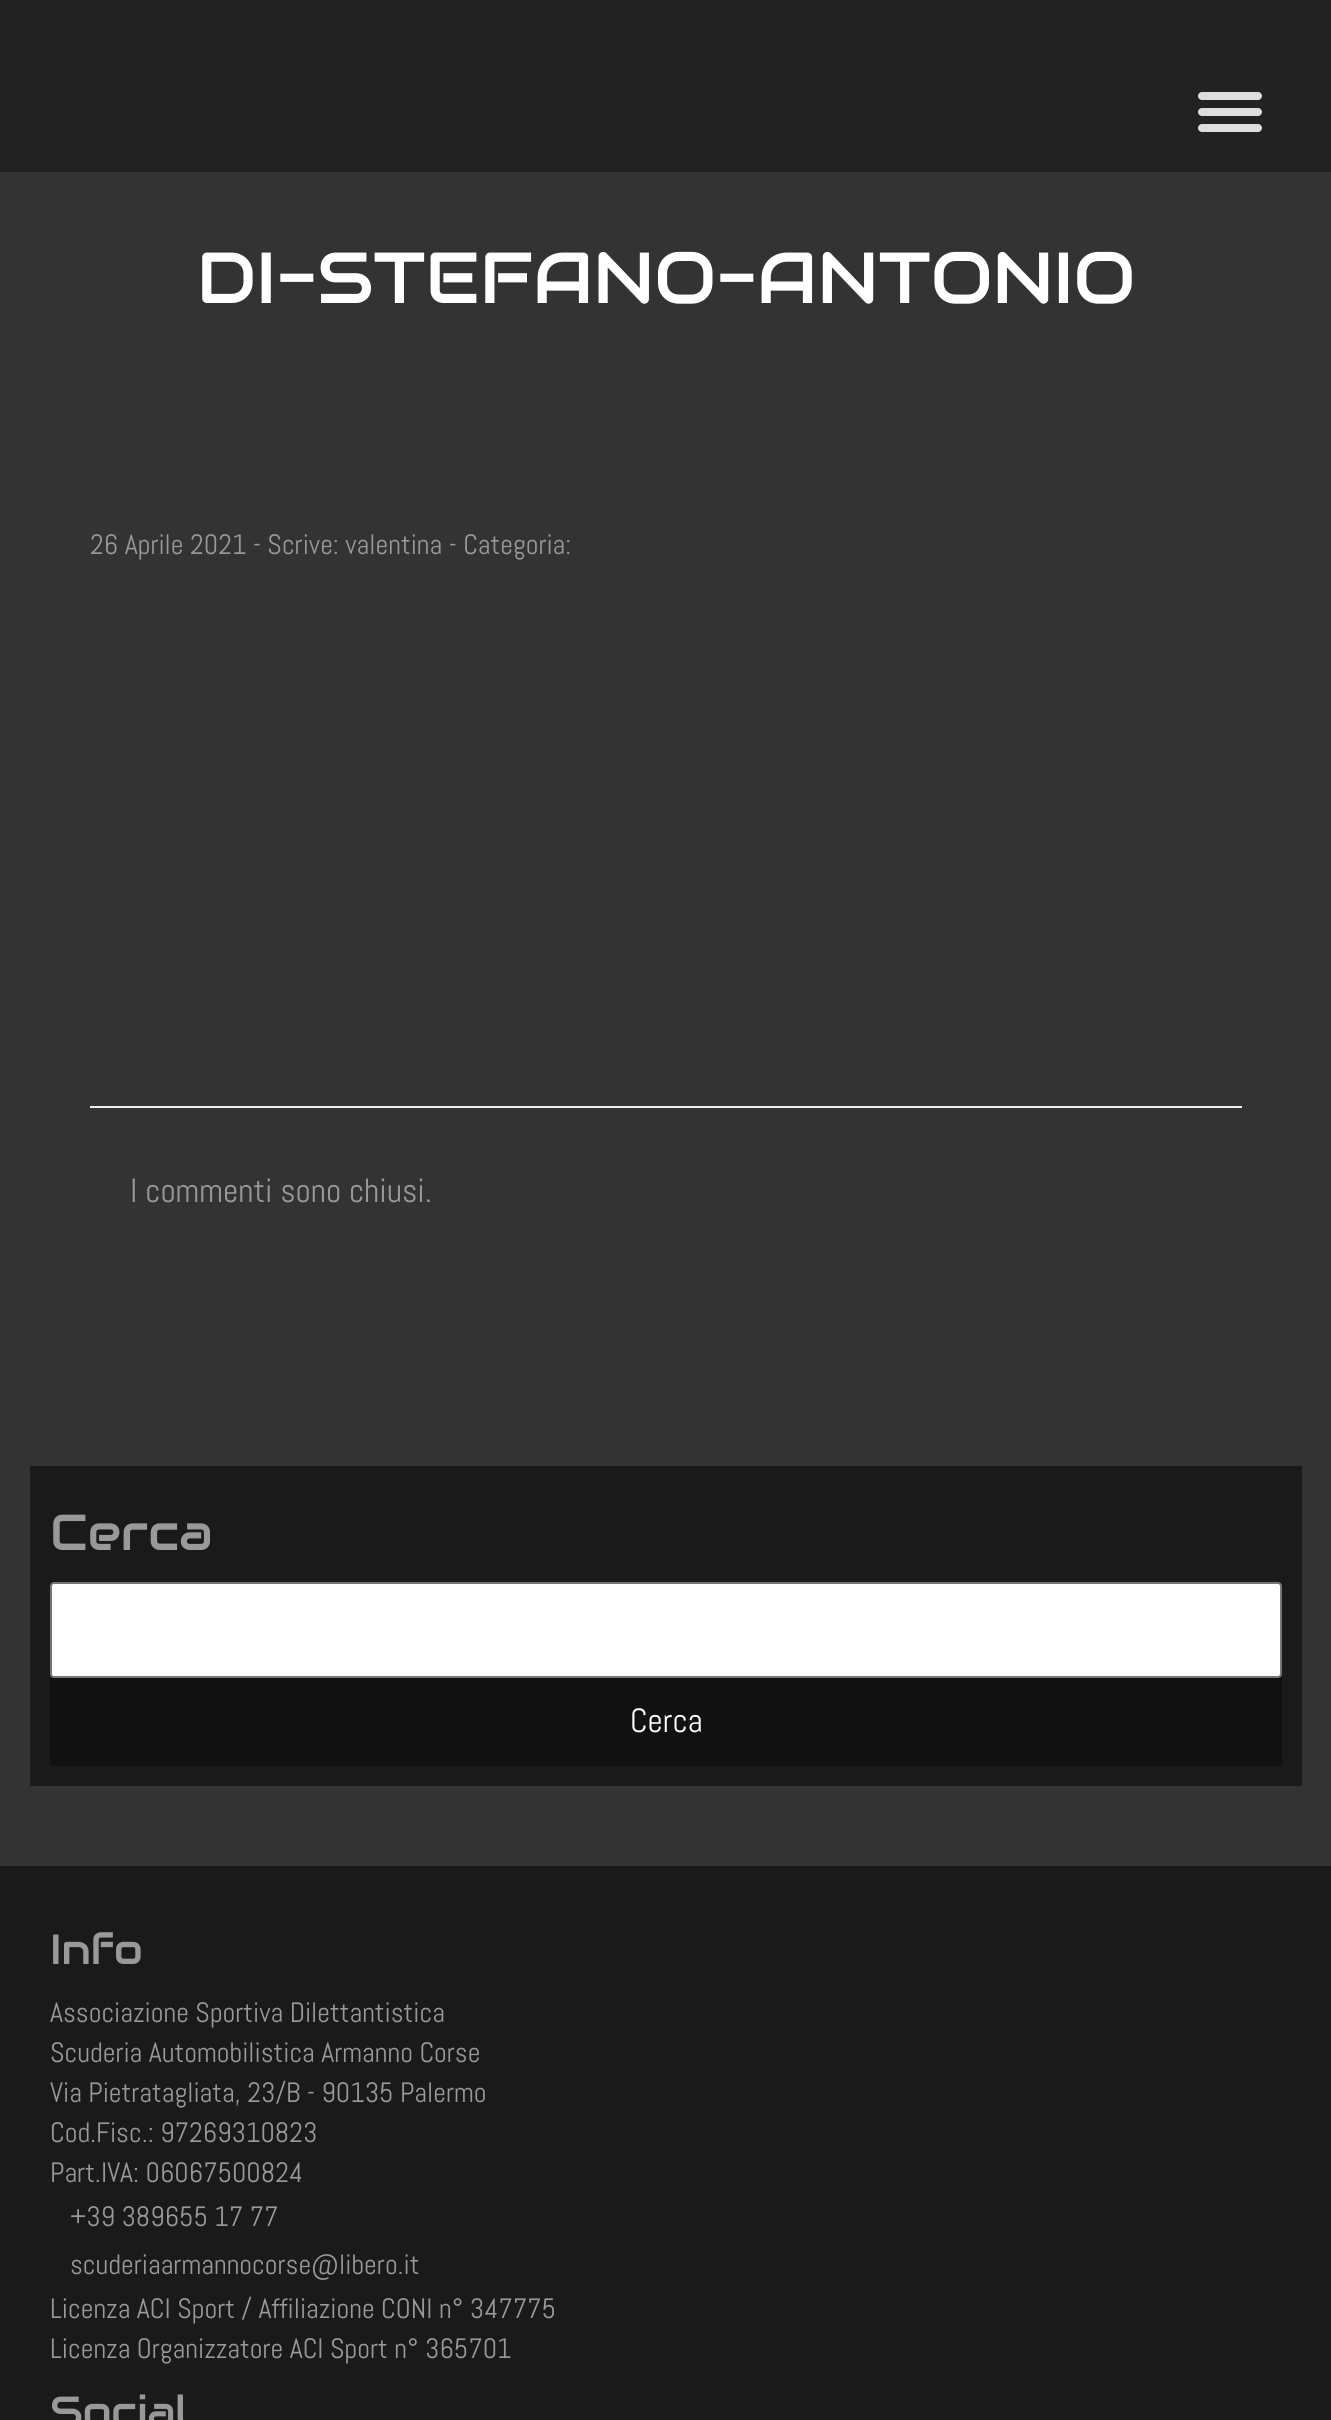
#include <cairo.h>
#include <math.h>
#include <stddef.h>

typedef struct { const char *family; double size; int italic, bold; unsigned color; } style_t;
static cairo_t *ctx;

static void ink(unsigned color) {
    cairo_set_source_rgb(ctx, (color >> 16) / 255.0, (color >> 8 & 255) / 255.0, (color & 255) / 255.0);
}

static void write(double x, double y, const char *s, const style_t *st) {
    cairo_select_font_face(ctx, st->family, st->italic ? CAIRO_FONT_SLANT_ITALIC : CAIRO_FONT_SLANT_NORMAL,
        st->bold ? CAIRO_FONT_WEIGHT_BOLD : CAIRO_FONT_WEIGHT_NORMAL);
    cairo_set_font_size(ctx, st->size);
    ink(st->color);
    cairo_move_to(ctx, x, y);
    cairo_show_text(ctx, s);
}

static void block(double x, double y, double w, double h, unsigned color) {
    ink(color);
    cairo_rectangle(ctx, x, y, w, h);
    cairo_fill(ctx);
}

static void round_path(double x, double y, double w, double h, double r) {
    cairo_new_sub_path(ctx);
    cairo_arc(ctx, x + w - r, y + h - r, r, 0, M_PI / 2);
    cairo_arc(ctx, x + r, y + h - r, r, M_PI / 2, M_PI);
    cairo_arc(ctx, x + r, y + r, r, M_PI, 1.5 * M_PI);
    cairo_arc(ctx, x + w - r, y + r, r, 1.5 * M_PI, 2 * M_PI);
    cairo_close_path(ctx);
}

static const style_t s1 = {"Audiowide", 72, 0, 0, 0xffffff};
static const style_t s2 = {"Abel", 28, 0, 0, 0x999999};
static const style_t s3 = {"Abel", 33.5, 0, 0, 0x999999};
static const style_t s4 = {"Audiowide", 50.5, 0, 0, 0x999999};
static const style_t s5 = {"Abel", 33.5, 0, 0, 0xffffff};
static const style_t s6 = {"Audiowide", 42, 0, 0, 0x999999};

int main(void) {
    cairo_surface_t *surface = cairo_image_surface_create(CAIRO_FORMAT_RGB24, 1331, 2420);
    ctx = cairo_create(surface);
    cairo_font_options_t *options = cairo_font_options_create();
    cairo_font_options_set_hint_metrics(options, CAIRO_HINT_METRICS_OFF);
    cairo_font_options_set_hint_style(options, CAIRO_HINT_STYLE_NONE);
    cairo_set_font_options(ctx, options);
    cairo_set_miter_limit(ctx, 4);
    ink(0x333333);
    cairo_paint(ctx);
    block(0, 0, 1331, 172, 0x222222);
    ink(0xdddddd);
    round_path(1198, 92, 64, 8, 4);
    cairo_fill(ctx);
    round_path(1198, 108, 64, 8, 4);
    cairo_fill(ctx);
    round_path(1198, 124, 64, 8, 4);
    cairo_fill(ctx);
    write(197, 303, "DI-STEFANO-ANTONIO", &s1);
    write(90, 554, "26 Aprile 2021 - Scrive: valentina - Categoria:", &s2);
    block(90, 1106, 1152, 2, 0xeeeeee);
    write(130, 1202, "I commenti sono chiusi.", &s3);
    block(30, 1466, 1272, 320, 0x1a1a1a);
    write(50, 1550, "Cerca", &s4);
    ink(0xffffff);
    round_path(51, 1583, 1230, 94, 3);
    cairo_fill_preserve(ctx);
    ink(0x767676);
    cairo_stroke(ctx);
    block(50, 1678, 1232, 88, 0x111111);
    write(630, 1732, "Cerca", &s5);
    block(0, 1866, 1331, 554, 0x1a1a1a);
    write(50, 1964, "Info", &s6);
    write(50, 2022, "Associazione Sportiva Dilettantistica", &s2);
    write(50, 2062, "Scuderia Automobilistica Armanno Corse", &s2);
    write(50, 2102, "Via Pietratagliata, 23/B - 90135 Palermo", &s2);
    write(50, 2142, "Cod.Fisc.: 97269310823", &s2);
    write(50, 2182, "Part.IVA: 06067500824", &s2);
    write(70, 2226, "+39 389655 17 77", &s2);
    write(70, 2274, "scuderiaarmannocorse@libero.it", &s2);
    write(50, 2318, "Licenza ACI Sport / Affiliazione CONI n° 347775", &s2);
    write(50, 2358, "Licenza Organizzatore ACI Sport n° 365701", &s2);
    write(50, 2426, "Social", &s6);
    cairo_surface_write_to_png(surface, "screenshot.png");
    cairo_font_options_destroy(options);
    cairo_destroy(ctx);
    cairo_surface_destroy(surface);
    return 0;
}
